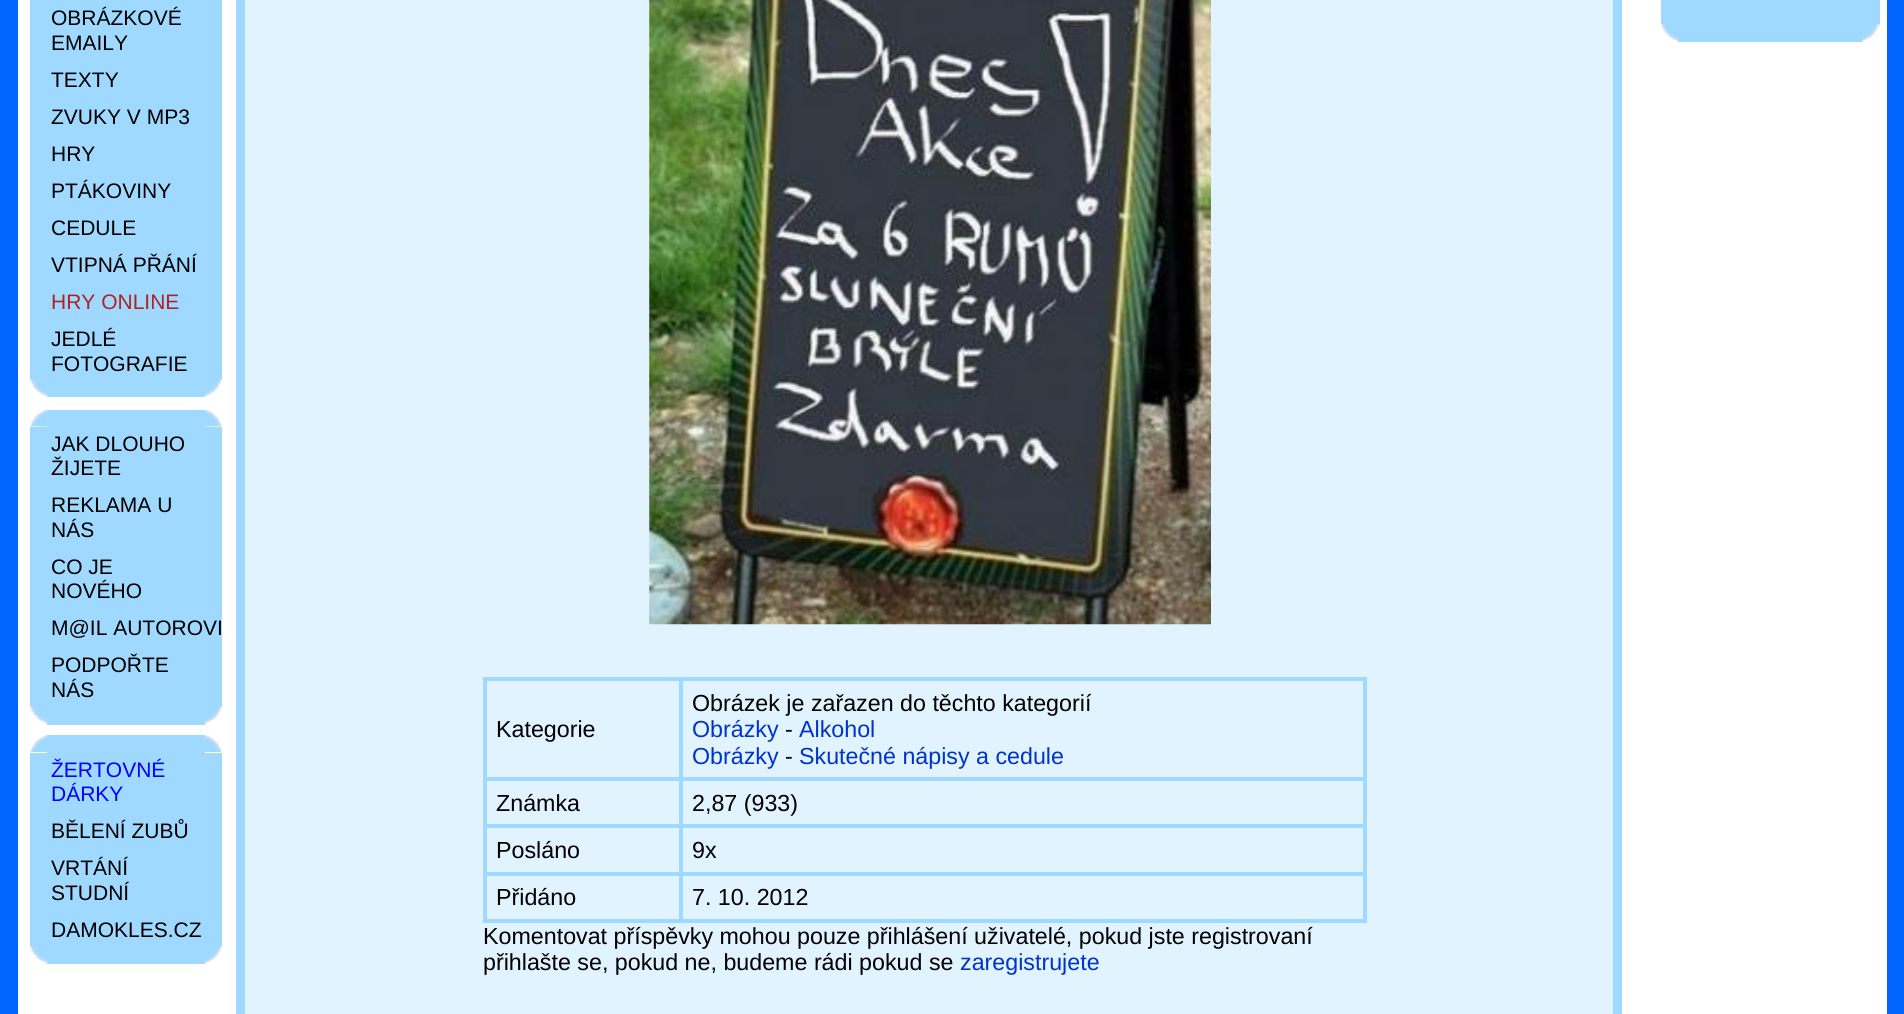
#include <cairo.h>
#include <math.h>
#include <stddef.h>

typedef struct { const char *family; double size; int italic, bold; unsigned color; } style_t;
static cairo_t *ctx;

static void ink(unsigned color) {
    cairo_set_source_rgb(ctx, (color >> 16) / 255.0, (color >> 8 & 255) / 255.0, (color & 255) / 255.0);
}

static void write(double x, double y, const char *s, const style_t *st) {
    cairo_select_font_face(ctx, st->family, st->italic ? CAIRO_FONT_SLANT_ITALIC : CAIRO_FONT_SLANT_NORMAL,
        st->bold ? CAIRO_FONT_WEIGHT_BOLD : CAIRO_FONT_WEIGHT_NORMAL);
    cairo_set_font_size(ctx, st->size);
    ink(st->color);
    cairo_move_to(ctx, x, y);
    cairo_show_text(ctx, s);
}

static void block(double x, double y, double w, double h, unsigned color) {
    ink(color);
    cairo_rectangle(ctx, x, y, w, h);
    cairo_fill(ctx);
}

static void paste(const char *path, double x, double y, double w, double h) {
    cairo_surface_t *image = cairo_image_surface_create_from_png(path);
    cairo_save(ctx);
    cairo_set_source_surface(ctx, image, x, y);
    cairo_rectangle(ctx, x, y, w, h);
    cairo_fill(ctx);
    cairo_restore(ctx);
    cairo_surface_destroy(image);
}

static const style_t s1 = {"Liberation Sans", 21, 0, 0, 0x000000};
static const style_t s2 = {"Liberation Sans", 21, 0, 0, 0xb22222};
static const style_t s3 = {"Liberation Sans", 21, 0, 0, 0x0000ff};
static const style_t s4 = {"Liberation Sans", 23.25, 0, 0, 0x000000};
static const style_t s5 = {"Liberation Sans", 23.25, 0, 0, 0x0033cc};

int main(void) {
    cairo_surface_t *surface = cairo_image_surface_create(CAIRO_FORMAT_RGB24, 1904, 1014);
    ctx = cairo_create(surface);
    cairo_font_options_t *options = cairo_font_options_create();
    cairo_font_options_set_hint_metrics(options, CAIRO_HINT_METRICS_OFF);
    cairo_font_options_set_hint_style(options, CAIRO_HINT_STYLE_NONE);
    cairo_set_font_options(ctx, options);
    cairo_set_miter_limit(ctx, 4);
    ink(0xffffff);
    cairo_paint(ctx);
    block(1887, 0, 17, 1014, 0x0166ff);
    block(0, 0, 18, 1014, 0x0166ff);
    block(30, 0, 192, 397, 0xa0d9ff);
    write(51, 25, "OBRÁZKOVÉ", &s1);
    write(51, 50, "EMAILY", &s1);
    write(51, 87, "TEXTY", &s1);
    write(51, 124, "ZVUKY V MP3", &s1);
    write(51, 161, "HRY", &s1);
    write(51, 198, "PTÁKOVINY", &s1);
    write(51, 235, "CEDULE", &s1);
    write(51, 272, "VTIPNÁ PŘÁNÍ", &s1);
    write(51, 309, "HRY ONLINE", &s2);
    write(51, 346, "JEDLÉ", &s1);
    write(51, 371, "FOTOGRAFIE", &s1);
    block(30, 380, 17, 17, 0xffffff);
    paste("pic1.png", 29, 379, 19, 18);
    block(205, 380, 17, 17, 0xffffff);
    paste("pic2.png", 204, 379, 19, 18);
    block(30, 410, 192, 315, 0xa0d9ff);
    block(30, 410, 17, 17, 0xffffff);
    paste("pic3.png", 29, 409, 19, 18);
    block(205, 410, 17, 17, 0xffffff);
    paste("pic4.png", 204, 409, 19, 18);
    write(51, 451, "JAK DLOUHO", &s1);
    write(51, 475, "ŽIJETE", &s1);
    write(51, 512, "REKLAMA U", &s1);
    write(51, 537, "NÁS", &s1);
    write(51, 574, "CO JE", &s1);
    write(51, 598, "NOVÉHO", &s1);
    write(51, 635, "M@IL AUTOROVI", &s1);
    write(51, 672, "PODPOŘTE", &s1);
    write(51, 697, "NÁS", &s1);
    block(30, 707, 17, 18, 0xffffff);
    paste("pic5.png", 29, 706, 19, 18);
    block(205, 707, 17, 18, 0xffffff);
    paste("pic6.png", 204, 706, 19, 18);
    block(30, 735, 192, 229, 0xa0d9ff);
    block(30, 735, 17, 18, 0xffffff);
    paste("pic7.png", 29, 734, 19, 18);
    block(205, 735, 17, 18, 0xffffff);
    paste("pic8.png", 204, 734, 19, 18);
    write(51, 777, "ŽERTOVNÉ", &s3);
    write(51, 801, "DÁRKY", &s3);
    write(51, 838, "BĚLENÍ ZUBŮ", &s1);
    write(51, 875, "VRTÁNÍ", &s1);
    write(51, 900, "STUDNÍ", &s1);
    write(51, 937, "DAMOKLES.CZ", &s1);
    block(30, 947, 17, 17, 0xffffff);
    paste("pic1.png", 29, 946, 19, 18);
    block(205, 947, 17, 17, 0xffffff);
    paste("pic2.png", 204, 946, 19, 18);
    block(1661, 0, 219, 42, 0xa0d9ff);
    block(1661, 25, 17, 17, 0xffffff);
    paste("pic9.png", 1660, 24, 19, 18);
    block(1862, 25, 18, 17, 0xffffff);
    paste("pic10.png", 1862, 24, 18, 18);
    ink(0xe1f3ff);
    cairo_rectangle(ctx, 240.5, -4.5, 1377, 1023);
    cairo_fill_preserve(ctx);
    ink(0xa0d9ff);
    cairo_set_line_width(ctx, 9);
    cairo_stroke(ctx);
    paste("pic11.png", 649, 0, 562, 625);
    block(679, 677, 688, 4, 0xa0d9ff);
    block(679, 777, 688, 4, 0xa0d9ff);
    block(679, 824, 688, 4, 0xa0d9ff);
    block(679, 872, 688, 4, 0xa0d9ff);
    block(1363, 872, 4, 50, 0xa0d9ff);
    block(679, 919, 688, 4, 0xa0d9ff);
    block(679, 872, 4, 50, 0xa0d9ff);
    block(483, 872, 200, 4, 0xa0d9ff);
    block(679, 824, 4, 51, 0xa0d9ff);
    block(483, 824, 200, 4, 0xa0d9ff);
    block(679, 777, 4, 51, 0xa0d9ff);
    block(483, 777, 200, 4, 0xa0d9ff);
    block(679, 677, 4, 104, 0xa0d9ff);
    block(483, 677, 200, 4, 0xa0d9ff);
    block(483, 919, 200, 4, 0xa0d9ff);
    block(483, 872, 4, 50, 0xa0d9ff);
    block(483, 824, 4, 51, 0xa0d9ff);
    block(483, 777, 4, 51, 0xa0d9ff);
    block(483, 677, 4, 104, 0xa0d9ff);
    write(496, 737, "Kategorie", &s4);
    block(1363, 824, 4, 51, 0xa0d9ff);
    block(1363, 777, 4, 51, 0xa0d9ff);
    block(1363, 677, 4, 104, 0xa0d9ff);
    write(692, 711, "Obrázek je zařazen do těchto kategorií", &s4);
    write(692, 737, "Obrázky", &s5);
    write(785, 737, "-", &s4);
    write(799, 737, "Alkohol", &s5);
    write(692, 764, "Obrázky", &s5);
    write(785, 764, "-", &s4);
    write(799, 764, "Skutečné nápisy a cedule", &s5);
    write(496, 811, "Známka", &s4);
    write(692, 811, "2,87 (933)", &s4);
    write(496, 858, "Posláno", &s4);
    write(692, 858, "9x", &s4);
    write(496, 905, "Přidáno", &s4);
    write(692, 905, "7. 10. 2012", &s4);
    write(483, 944, "Komentovat příspěvky mohou pouze přihlášení uživatelé, pokud jste registrovaní", &s4);
    write(483, 970, "přihlašte se, pokud ne, budeme rádi pokud se", &s4);
    write(960, 970, "zaregistrujete", &s5);
    cairo_surface_write_to_png(surface, "screenshot.png");
    cairo_font_options_destroy(options);
    cairo_destroy(ctx);
    cairo_surface_destroy(surface);
    return 0;
}
